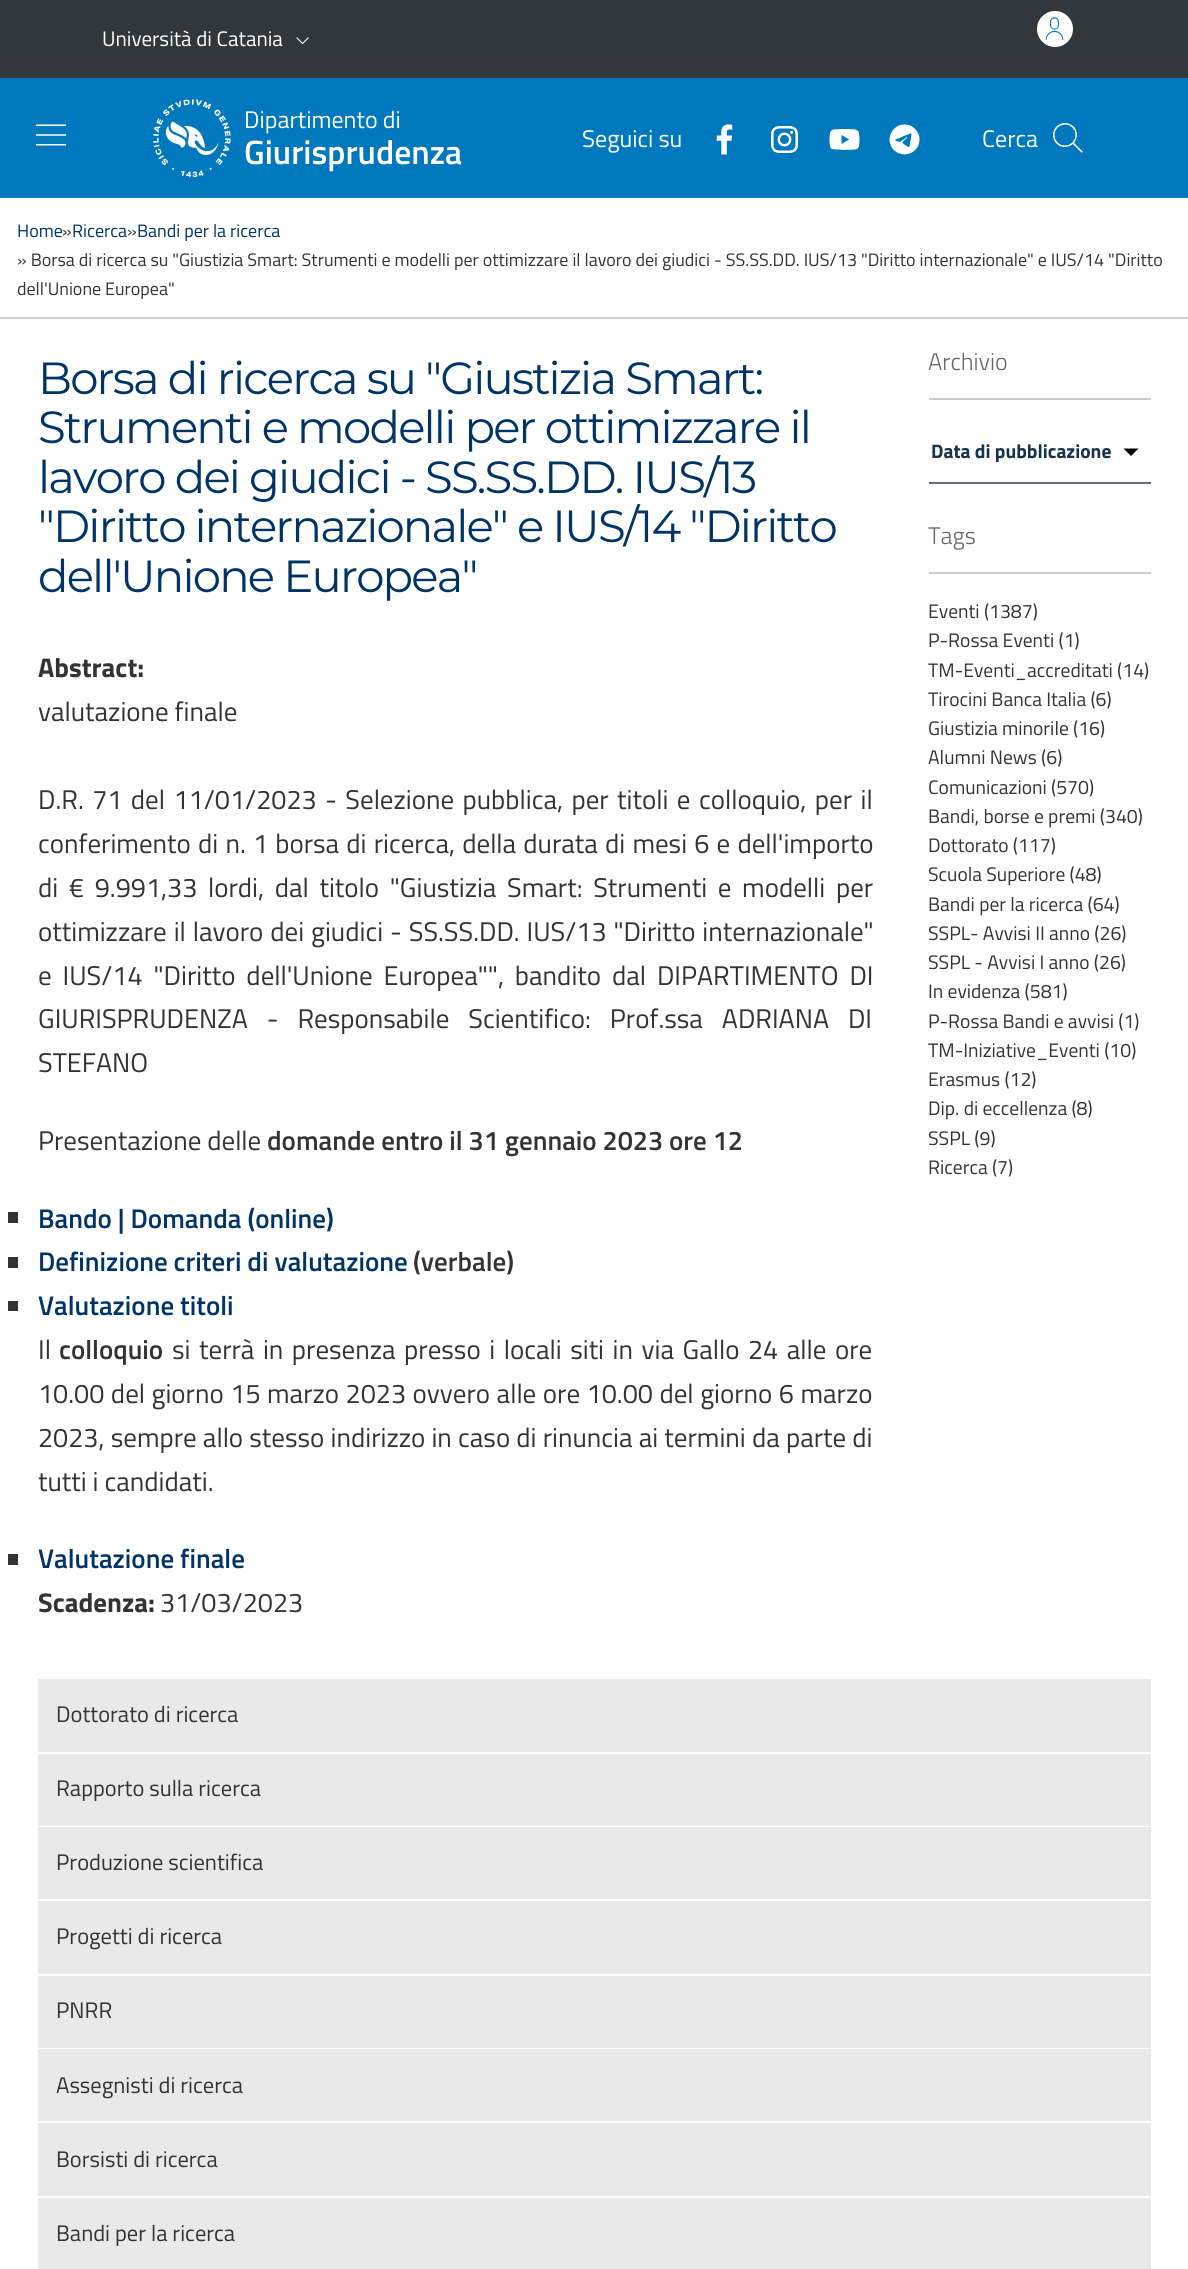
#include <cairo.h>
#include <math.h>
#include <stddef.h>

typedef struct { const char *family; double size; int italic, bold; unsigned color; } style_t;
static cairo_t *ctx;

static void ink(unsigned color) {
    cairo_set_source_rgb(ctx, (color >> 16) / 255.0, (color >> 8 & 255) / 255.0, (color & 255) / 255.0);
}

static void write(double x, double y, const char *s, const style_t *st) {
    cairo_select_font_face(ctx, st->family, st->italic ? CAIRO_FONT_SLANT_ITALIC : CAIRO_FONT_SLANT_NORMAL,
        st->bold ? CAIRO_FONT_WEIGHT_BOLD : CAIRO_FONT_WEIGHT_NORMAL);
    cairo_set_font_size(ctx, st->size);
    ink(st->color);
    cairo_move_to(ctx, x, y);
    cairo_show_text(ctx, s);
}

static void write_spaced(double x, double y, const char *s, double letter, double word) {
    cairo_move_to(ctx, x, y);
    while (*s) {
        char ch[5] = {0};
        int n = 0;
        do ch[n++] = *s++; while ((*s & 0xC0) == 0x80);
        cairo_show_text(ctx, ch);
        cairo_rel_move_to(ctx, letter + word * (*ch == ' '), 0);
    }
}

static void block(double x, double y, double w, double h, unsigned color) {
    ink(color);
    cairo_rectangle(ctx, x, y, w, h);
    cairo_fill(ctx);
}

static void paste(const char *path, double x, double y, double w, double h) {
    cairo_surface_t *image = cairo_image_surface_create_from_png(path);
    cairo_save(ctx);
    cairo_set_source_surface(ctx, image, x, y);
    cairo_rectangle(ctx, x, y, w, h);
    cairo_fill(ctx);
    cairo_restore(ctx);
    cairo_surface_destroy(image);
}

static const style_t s1 = {"Titillium Web", 21, 0, 0, 0xffffff};
static const style_t s2 = {"Titillium Web", 24, 0, 0, 0xffffff};
static const style_t s3 = {"Titillium Web SemiBold", 33.75, 0, 0, 0xffffff};
static const style_t s4 = {"Titillium Web", 18, 0, 0, 0x003366};
static const style_t s5 = {"Titillium Web", 18, 0, 0, 0x333333};
static const style_t s6 = {"Titillium Web", 27, 0, 1, 0x333333};
static const style_t s7 = {"Titillium Web", 27, 0, 0, 0x333333};
static const style_t s8 = {"Titillium Web SemiBold", 27, 0, 0, 0x333333};
static const style_t s9 = {"Titillium Web SemiBold", 27, 0, 0, 0x003366};
static const style_t s10 = {"Titillium Web Light", 24, 0, 0, 0x666666};
static const style_t s11 = {"Titillium Web", 19.5, 0, 1, 0x17324d};
static const style_t s12 = {"Titillium Web", 19.5, 0, 0, 0x333333};
static const style_t s13 = {"Titillium Web", 22.5, 0, 0, 0x333333};

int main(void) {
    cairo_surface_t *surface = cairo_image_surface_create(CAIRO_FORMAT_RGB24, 1188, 2269);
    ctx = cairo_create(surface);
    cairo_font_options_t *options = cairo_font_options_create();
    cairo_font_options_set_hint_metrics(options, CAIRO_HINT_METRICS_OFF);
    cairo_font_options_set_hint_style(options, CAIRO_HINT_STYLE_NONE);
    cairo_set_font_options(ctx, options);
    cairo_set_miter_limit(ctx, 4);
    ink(0xffffff);
    cairo_paint(ctx);
    block(0, 0, 1188, 78, 0x30373d);
    write(102, 46, "Università di Catania", &s1);
    paste("pic1.png", 296, 37, 13, 8);
    cairo_arc(ctx, 1055, 29, 18, 0, 2 * M_PI);
    cairo_fill(ctx);
    paste("pic2.png", 1045, 17, 19, 23);
    block(0, 78, 1188, 120, 0x0078bd);
    paste("pic3.png", 36, 124, 30, 22);
    paste("pic4.png", 153, 99, 78, 79);
    write(244, 128, "Dipartimento di", &s2);
    write(244, 164, "Giurisprudenza", &s3);
    write(582, 147, "Seguici su", &s2);
    paste("pic5.png", 716, 124, 17, 31);
    paste("pic6.png", 771, 126, 28, 27);
    paste("pic7.png", 829, 129, 31, 21);
    paste("pic8.png", 889, 124, 31, 31);
    write(982, 147, "Cerca", &s2);
    paste("pic9.png", 1053, 123, 30, 30);
    block(0, 317, 1188, 2, 0xcccccc);
    write(17, 237, "Home", &s4);
    write(62, 237, "»", &s5);
    write(72, 237, "Ricerca", &s4);
    write(127, 237, "»", &s5);
    write(137, 237, "Bandi per la ricerca", &s4);
    write(17, 266, "» Borsa di ricerca su \"Giustizia Smart: Strumenti e modelli per ottimizzare il lavoro dei giudici - SS.SS.DD. IUS/13 \"Diritto internazionale\" e IUS/14 \"Diritto", &s5);
    write(17, 295, "dell'Unione Europea\"", &s5);
    cairo_select_font_face(ctx, "Montserrat Thin", CAIRO_FONT_SLANT_NORMAL, CAIRO_FONT_WEIGHT_NORMAL);
    cairo_set_font_size(ctx, 45);
    ink(0x003366);
    write_spaced(38, 394, "Borsa di ricerca su \"Giustizia Smart:", -1.8, 0);
    write_spaced(38, 443, "Strumenti e modelli per ottimizzare il", -1.8, 0);
    write_spaced(38, 493, "lavoro dei giudici - SS.SS.DD. IUS/13", -1.8, 0);
    write_spaced(38, 542, "\"Diritto internazionale\" e IUS/14 \"Diritto", -1.8, 0);
    write_spaced(38, 592, "dell'Unione Europea\"", -1.8, 0);
    write(38, 677, "Abstract:", &s6);
    write(38, 721, "valutazione finale", &s7);
    write_spaced(38, 809, "D.R. 71 del 11/01/2023 - Selezione pubblica, per titoli e colloquio, per il", 0, 2.5);
    write_spaced(38, 853, "conferimento di n. 1 borsa di ricerca, della durata di mesi 6 e dell'importo", 0, 1.25);
    write_spaced(38, 897, "di € 9.991,33 lordi, dal titolo \"Giustizia Smart: Strumenti e modelli per", 0, 4.75);
    write_spaced(38, 941, "ottimizzare il lavoro dei giudici - SS.SS.DD. IUS/13 \"Diritto internazionale\"", 0, 1);
    write_spaced(38, 985, "e IUS/14 \"Diritto dell'Unione Europea\"\", bandito dal DIPARTIMENTO DI", 0, 5);
    write_spaced(38, 1028, "GIURISPRUDENZA - Responsabile Scientifico: Prof.ssa ADRIANA DI", 0, 13);
    write(38, 1072, "STEFANO", &s7);
    write(38, 1150, "Presentazione delle", &s7);
    write(267, 1150, "domande entro il 31 gennaio 2023 ore 12", &s8);
    block(8, 1212, 10, 11, 0x333333);
    write(38, 1228, "Bando | Domanda (online)", &s9);
    block(8, 1257, 10, 11, 0x333333);
    write(38, 1271, "Definizione criteri di valutazione", &s9);
    write(413, 1271, "(verbale)", &s8);
    block(8, 1301, 10, 10, 0x333333);
    write(38, 1315, "Valutazione titoli", &s9);
    write(38, 1359, "Il", &s7);
    write(59, 1359, "colloquio", &s8);
    cairo_select_font_face(ctx, "Titillium Web", CAIRO_FONT_SLANT_NORMAL, CAIRO_FONT_WEIGHT_NORMAL);
    write_spaced(172, 1359, "si terrà in presenza presso i locali siti in via Gallo 24 alle ore", 0, 2.6);
    write_spaced(38, 1403, "10.00 del giorno 15 marzo 2023 ovvero alle ore 10.00 del giorno 6 marzo", 0, 0.6);
    write_spaced(38, 1447, "2023, sempre allo stesso indirizzo in caso di rinuncia ai termini da parte di", 0, 0.25);
    write(38, 1491, "tutti i candidati.", &s7);
    block(8, 1554, 10, 11, 0x333333);
    write(38, 1568, "Valutazione finale", &s9);
    write(38, 1612, "Scadenza:", &s6);
    write(160, 1612, "31/03/2023", &s7);
    block(929, 398, 222, 2, 0xcccccc);
    write(928, 370, "Archivio", &s10);
    ink(0x000000);
    cairo_new_path(ctx);
    cairo_move_to(ctx, 1123.5, 448.5);
    cairo_line_to(ctx, 1131, 456);
    cairo_line_to(ctx, 1138.5, 448.5);
    cairo_close_path(ctx);
    cairo_fill(ctx);
    block(929, 482, 222, 2, 0x5c6f82);
    write(931, 458, "Data di pubblicazione", &s11);
    block(929, 572, 222, 2, 0xcccccc);
    write(928, 544, "Tags", &s10);
    write(928, 618, "Eventi (1387)", &s12);
    write(928, 647, "P-Rossa Eventi (1)", &s12);
    write(928, 677, "TM-Eventi_accreditati (14)", &s12);
    write(928, 706, "Tirocini Banca Italia (6)", &s12);
    write(928, 735, "Giustizia minorile (16)", &s12);
    write(928, 764, "Alumni News (6)", &s12);
    write(928, 794, "Comunicazioni (570)", &s12);
    write(928, 823, "Bandi, borse e premi (340)", &s12);
    write(928, 852, "Dottorato (117)", &s12);
    write(928, 881, "Scuola Superiore (48)", &s12);
    write(928, 911, "Bandi per la ricerca (64)", &s12);
    write(928, 940, "SSPL- Avvisi II anno (26)", &s12);
    write(928, 969, "SSPL - Avvisi I anno (26)", &s12);
    write(928, 998, "In evidenza (581)", &s12);
    write(928, 1028, "P-Rossa Bandi e avvisi (1)", &s12);
    write(928, 1057, "TM-Iniziative_Eventi (10)", &s12);
    write(928, 1086, "Erasmus (12)", &s12);
    write(928, 1115, "Dip. di eccellenza (8)", &s12);
    write(928, 1145, "SSPL (9)", &s12);
    write(928, 1174, "Ricerca (7)", &s12);
    block(38, 1679, 1113, 73, 0xe9e9e9);
    write(56, 1722, "Dottorato di ricerca", &s13);
    block(38, 1754, 1113, 72, 0xe9e9e9);
    write(56, 1796, "Rapporto sulla ricerca", &s13);
    block(38, 1827, 1113, 72, 0xe9e9e9);
    write(56, 1870, "Produzione scientifica", &s13);
    block(38, 1901, 1113, 73, 0xe9e9e9);
    write(56, 1944, "Progetti di ricerca", &s13);
    block(38, 1976, 1113, 72, 0xe9e9e9);
    write(56, 2018, "PNRR", &s13);
    block(38, 2049, 1113, 72, 0xe9e9e9);
    write(56, 2093, "Assegnisti di ricerca", &s13);
    block(38, 2123, 1113, 73, 0xe9e9e9);
    write(56, 2167, "Borsisti di ricerca", &s13);
    block(38, 2198, 1113, 71, 0xe9e9e9);
    write(56, 2241, "Bandi per la ricerca", &s13);
    cairo_surface_write_to_png(surface, "screenshot.png");
    cairo_font_options_destroy(options);
    cairo_destroy(ctx);
    cairo_surface_destroy(surface);
    return 0;
}
